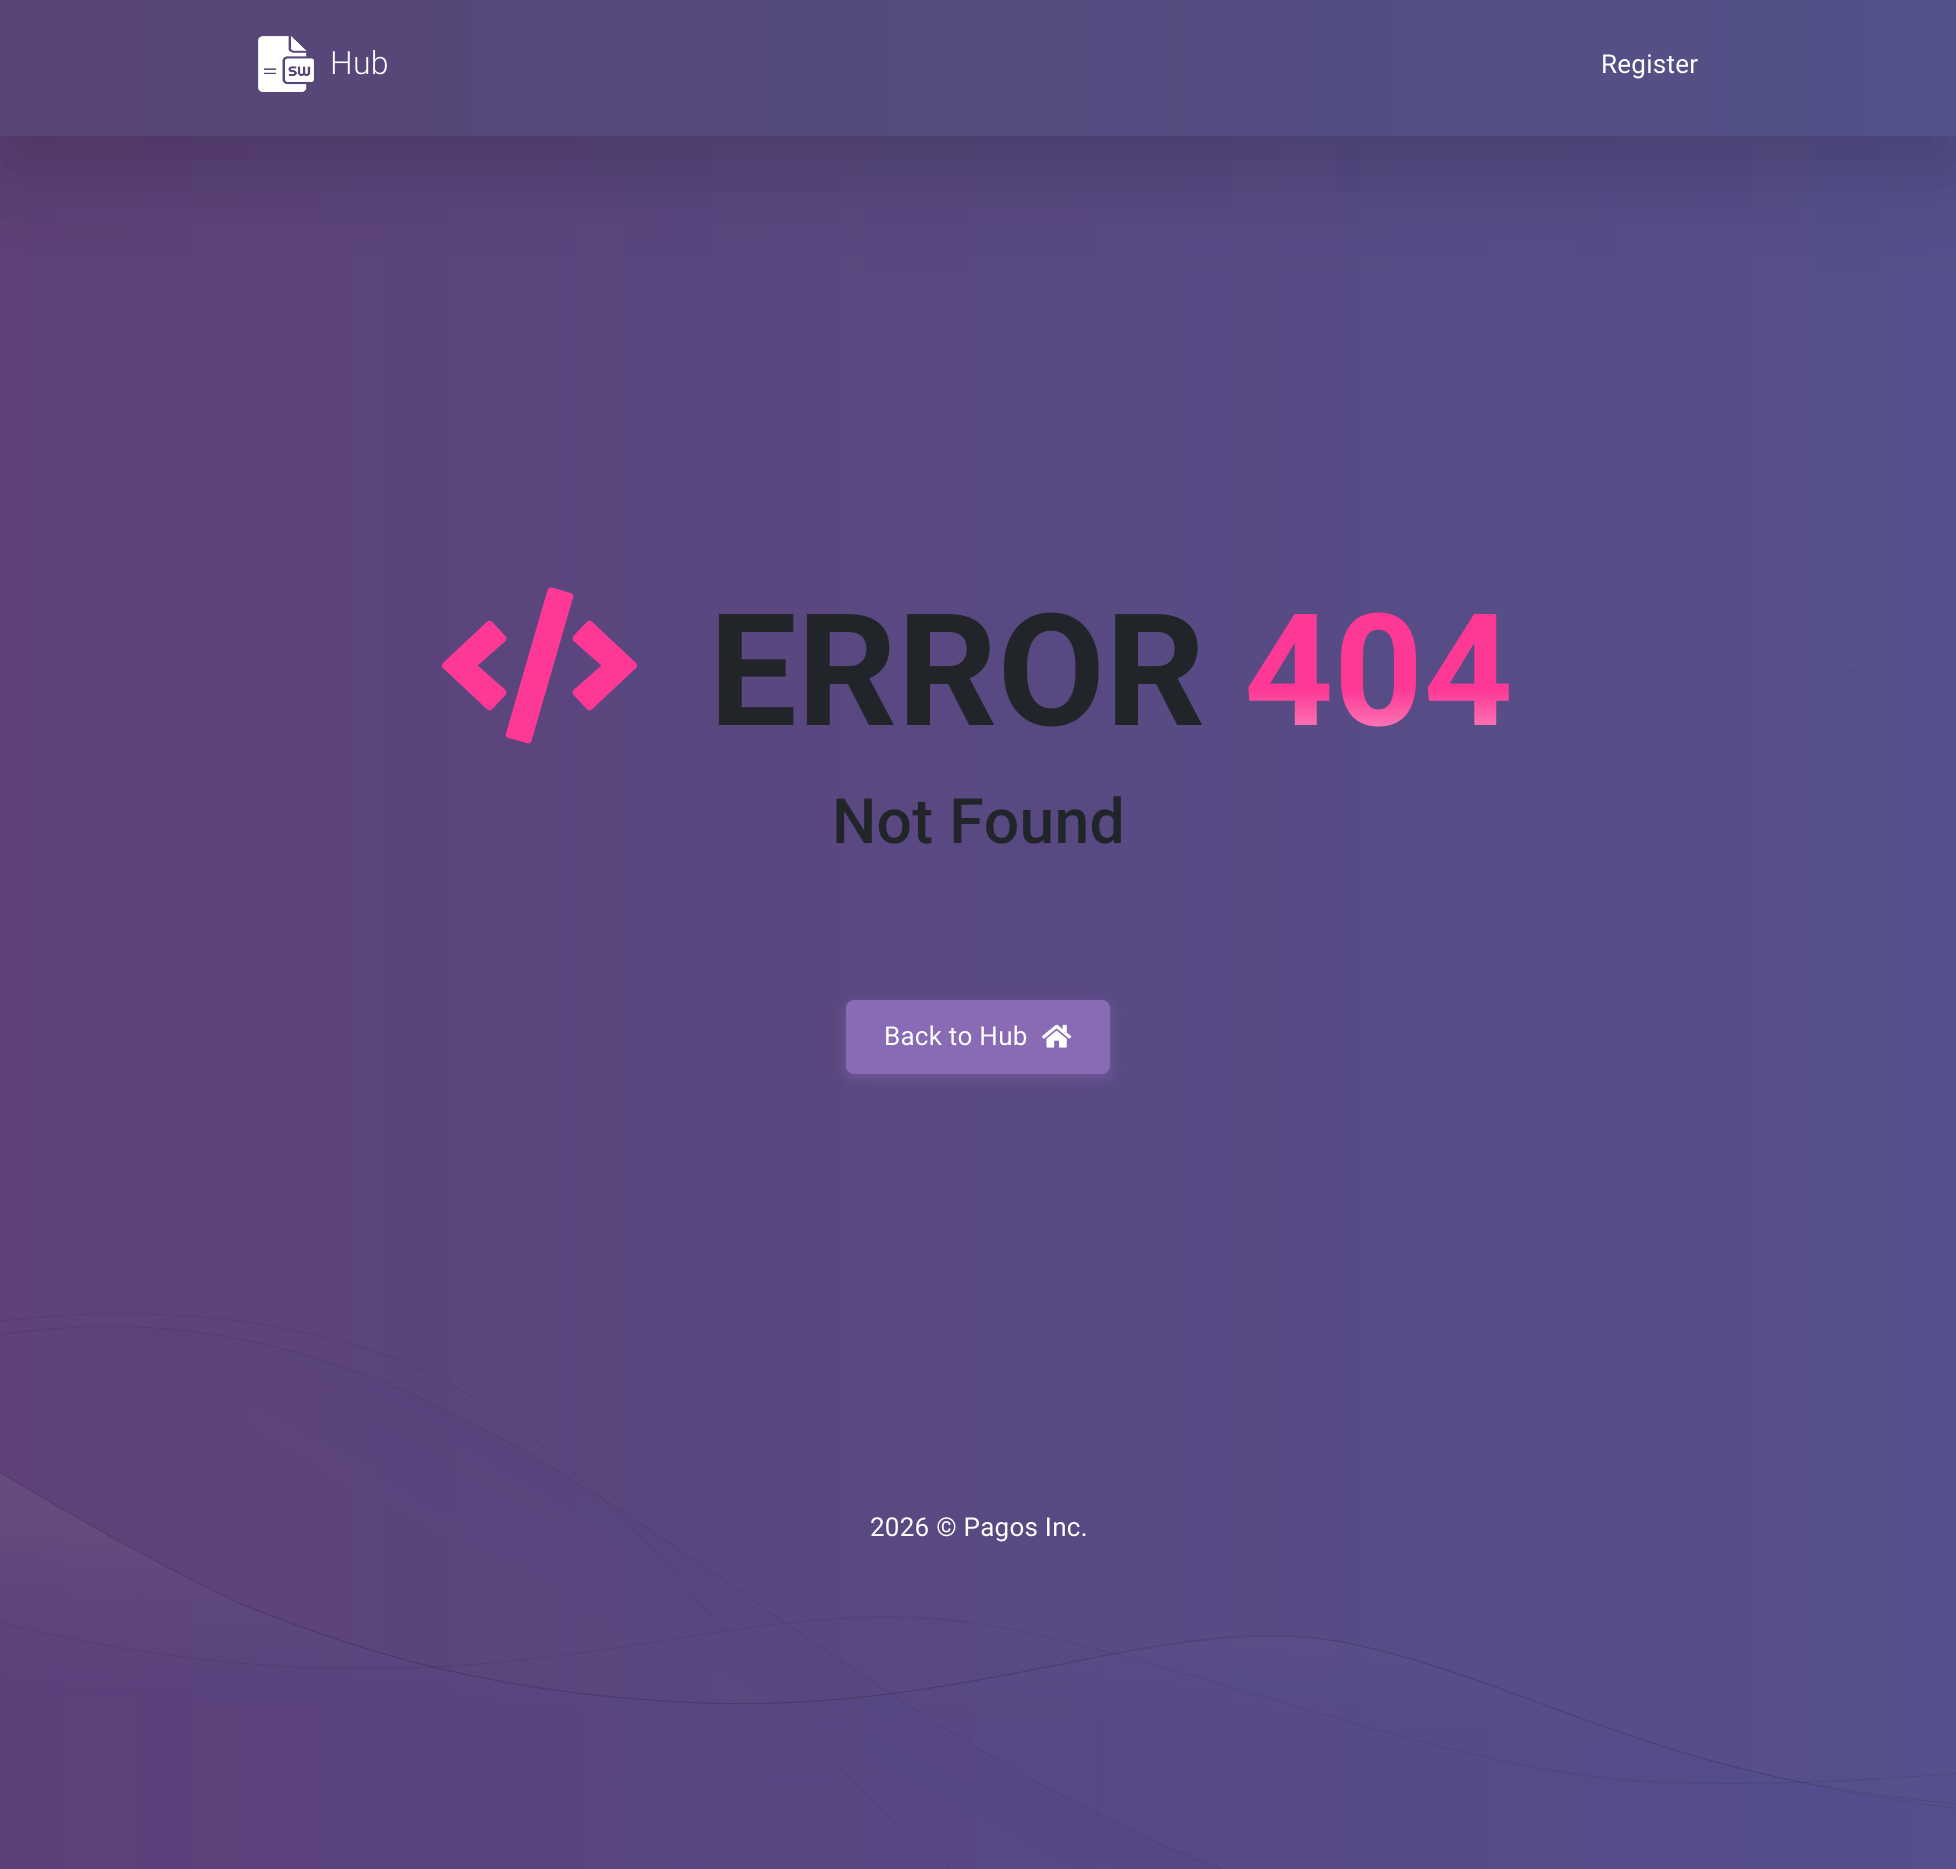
#include <cairo.h>
#include <math.h>
#include <stddef.h>

static cairo_t *ctx;

static void ink(unsigned color) {
    cairo_set_source_rgb(ctx, (color >> 16) / 255.0, (color >> 8 & 255) / 255.0, (color & 255) / 255.0);
}

static void write_spaced(double x, double y, const char *s, double letter, double word) {
    cairo_move_to(ctx, x, y);
    while (*s) {
        char ch[5] = {0};
        int n = 0;
        do ch[n++] = *s++; while ((*s & 0xC0) == 0x80);
        cairo_show_text(ctx, ch);
        cairo_rel_move_to(ctx, letter + word * (*ch == ' '), 0);
    }
}

static void round_path(double x, double y, double w, double h, double r) {
    cairo_new_sub_path(ctx);
    cairo_arc(ctx, x + w - r, y + h - r, r, 0, M_PI / 2);
    cairo_arc(ctx, x + r, y + h - r, r, M_PI / 2, M_PI);
    cairo_arc(ctx, x + r, y + r, r, M_PI, 1.5 * M_PI);
    cairo_arc(ctx, x + w - r, y + r, r, 1.5 * M_PI, 2 * M_PI);
    cairo_close_path(ctx);
}

static void blur_box(double x, double y, double w, double h, double r, double blur, double alpha) {
    cairo_push_group_with_content(ctx, CAIRO_CONTENT_ALPHA);
    cairo_set_operator(ctx, CAIRO_OPERATOR_SOURCE);
    for (int i = 15; i >= -15 && fmin(w, h) + blur * i / 3 > 0; i -= 2) {
        double e = blur * i / 6;
        cairo_set_source_rgba(ctx, 0, 0, 0, alpha * erfc((i - 1) / 8.5) / 2);
        round_path(x - e, y - e, w + 2 * e, h + 2 * e, fmax(0, fmin(r + e + blur * .6, fmin(w, h) / 2 + e)));
        cairo_fill(ctx);
    }
    cairo_pattern_t *soft = cairo_pop_group(ctx);
    cairo_mask(ctx, soft);
    cairo_pattern_destroy(soft);
}

static void paste(const char *path, double x, double y, double w, double h) {
    cairo_surface_t *image = cairo_image_surface_create_from_png(path);
    cairo_save(ctx);
    cairo_set_source_surface(ctx, image, x, y);
    cairo_rectangle(ctx, x, y, w, h);
    cairo_fill(ctx);
    cairo_restore(ctx);
    cairo_surface_destroy(image);
}

int main(void) {
    cairo_surface_t *surface = cairo_image_surface_create(CAIRO_FORMAT_RGB24, 1956, 1869);
    ctx = cairo_create(surface);
    cairo_font_options_t *options = cairo_font_options_create();
    cairo_font_options_set_hint_metrics(options, CAIRO_HINT_METRICS_OFF);
    cairo_font_options_set_hint_style(options, CAIRO_HINT_STYLE_NONE);
    cairo_set_font_options(ctx, options);
    cairo_set_miter_limit(ctx, 4);
    cairo_pattern_t *gradient;
    ink(0xffffff);
    cairo_paint(ctx);
    gradient = cairo_pattern_create_linear(1956, 935, 0, 935);
    cairo_pattern_add_color_stop_rgba(gradient, 0, 0.333, 0.314, 0.545, 1);
    cairo_pattern_add_color_stop_rgba(gradient, 1, 0.365, 0.255, 0.471, 1);
    cairo_set_source(ctx, gradient);
    cairo_pattern_destroy(gradient);
    cairo_rectangle(ctx, 0, 136, 1956, 1733);
    cairo_fill(ctx);
    ink(0x000000);
    blur_box(0, 32, 1956, 136, 0, 48, 0.18);
    gradient = cairo_pattern_create_linear(1956, 68, 0, 68);
    cairo_pattern_add_color_stop_rgba(gradient, 0, 0.318, 0.322, 0.533, 1);
    cairo_pattern_add_color_stop_rgba(gradient, 1, 0.345, 0.267, 0.459, 1);
    cairo_set_source(ctx, gradient);
    cairo_pattern_destroy(gradient);
    cairo_rectangle(ctx, 0, 0, 1956, 136);
    cairo_fill(ctx);
    paste("pic1.png", 258, 36, 56, 56);
    cairo_select_font_face(ctx, "Roboto Light", CAIRO_FONT_SLANT_NORMAL, CAIRO_FONT_WEIGHT_NORMAL);
    cairo_set_font_size(ctx, 32);
    ink(0xffffff);
    write_spaced(330, 74, "Hub", 0.25, 0);
    cairo_select_font_face(ctx, "Roboto", CAIRO_FONT_SLANT_NORMAL, CAIRO_FONT_WEIGHT_NORMAL);
    cairo_set_font_size(ctx, 26);
    write_spaced(1601, 73, "Register", 0.25, 0);
    paste("pic2.png", 0, 627, 1956, 1242);
    paste("pic3.png", 442, 587, 195, 157);
    cairo_select_font_face(ctx, "Roboto", CAIRO_FONT_SLANT_NORMAL, CAIRO_FONT_WEIGHT_BOLD);
    cairo_set_font_size(ctx, 156);
    ink(0x212529);
    write_spaced(709, 725, "ERROR", 0.25, 0);
    gradient = cairo_pattern_create_linear(1379, 581, 1379, 763);
    cairo_pattern_add_color_stop_rgba(gradient, 0, 0.992, 0.224, 0.584, 1);
    cairo_pattern_add_color_stop_rgba(gradient, 0.6, 0.992, 0.224, 0.584, 1);
    cairo_pattern_add_color_stop_rgba(gradient, 0.95, 0.996, 0.62, 0.796, 1);
    cairo_set_source(ctx, gradient);
    cairo_pattern_destroy(gradient);
    write_spaced(1244, 725, "404", 0.25, 0);
    cairo_select_font_face(ctx, "Roboto Medium", CAIRO_FONT_SLANT_NORMAL, CAIRO_FONT_WEIGHT_NORMAL);
    cairo_set_font_size(ctx, 62.5);
    ink(0x212529);
    write_spaced(832, 843, "Not Found", 0.25, 0);
    ink(0x886ab5);
    blur_box(846, 1004, 264, 74, 8, 6, 0.5);
    ink(0x886ab5);
    round_path(847, 1001, 262, 72, 7);
    cairo_fill_preserve(ctx);
    cairo_stroke(ctx);
    cairo_select_font_face(ctx, "Roboto", CAIRO_FONT_SLANT_NORMAL, CAIRO_FONT_WEIGHT_NORMAL);
    cairo_set_font_size(ctx, 26);
    ink(0xffffff);
    write_spaced(884, 1045, "Back to Hub", 0.25, 0);
    paste("pic4.png", 1042, 1024, 30, 24);
    write_spaced(870, 1536, "2026 © Pagos Inc.", 0.25, 0);
    cairo_surface_write_to_png(surface, "screenshot.png");
    cairo_font_options_destroy(options);
    cairo_destroy(ctx);
    cairo_surface_destroy(surface);
    return 0;
}
